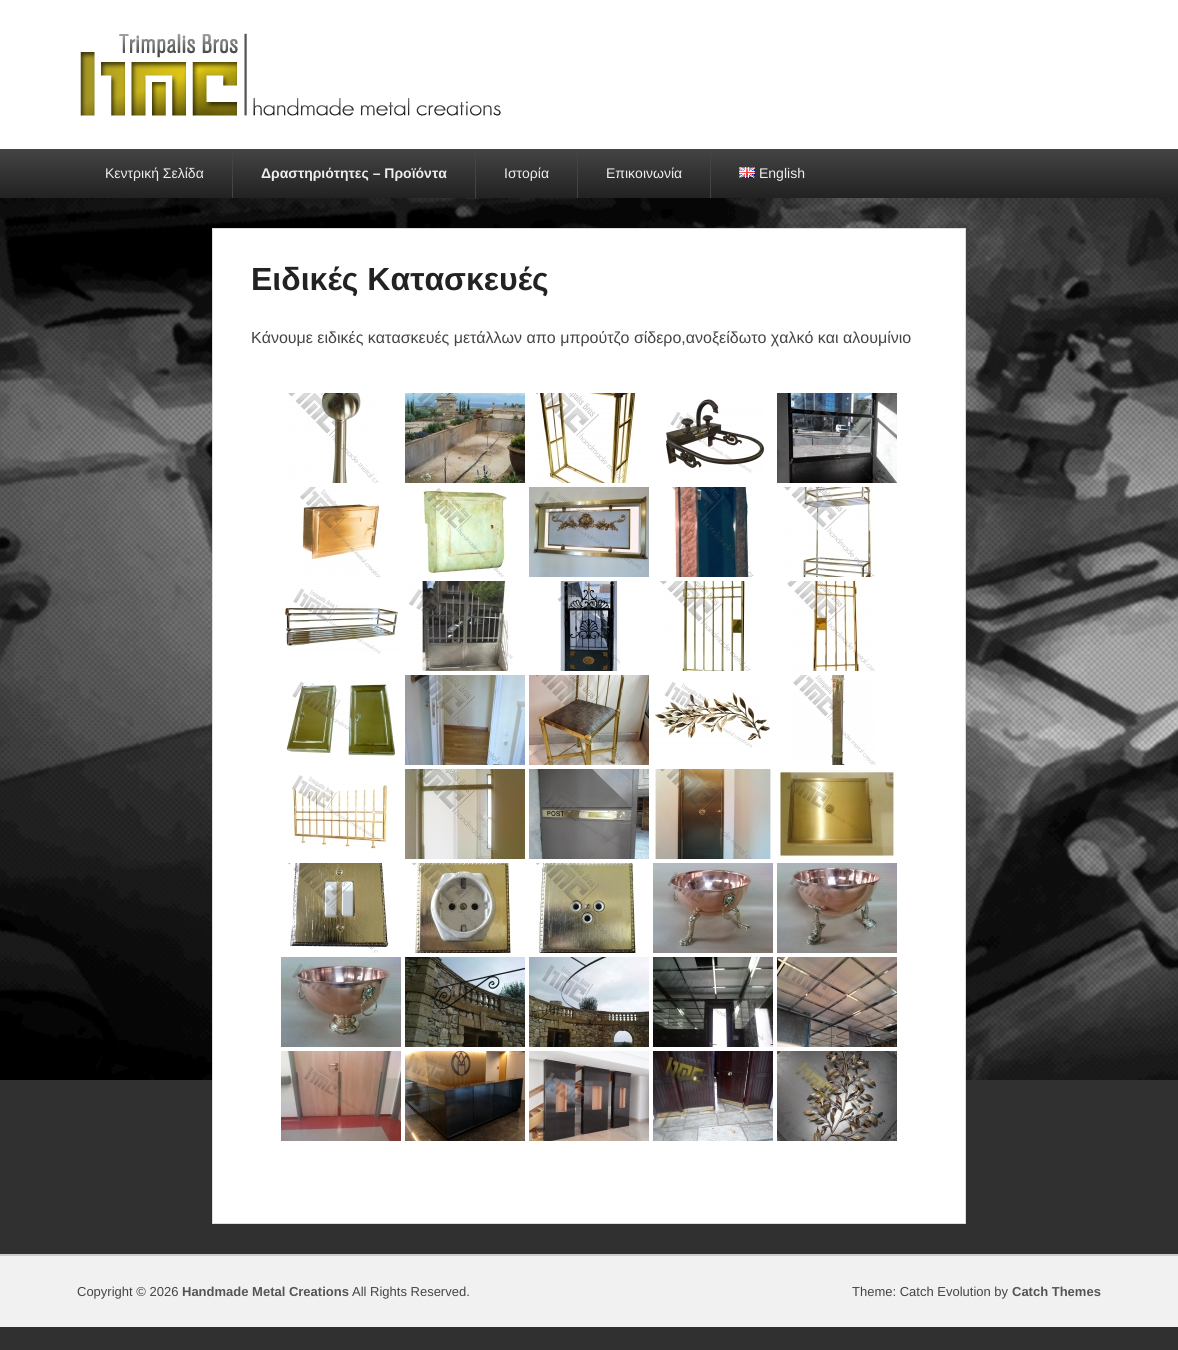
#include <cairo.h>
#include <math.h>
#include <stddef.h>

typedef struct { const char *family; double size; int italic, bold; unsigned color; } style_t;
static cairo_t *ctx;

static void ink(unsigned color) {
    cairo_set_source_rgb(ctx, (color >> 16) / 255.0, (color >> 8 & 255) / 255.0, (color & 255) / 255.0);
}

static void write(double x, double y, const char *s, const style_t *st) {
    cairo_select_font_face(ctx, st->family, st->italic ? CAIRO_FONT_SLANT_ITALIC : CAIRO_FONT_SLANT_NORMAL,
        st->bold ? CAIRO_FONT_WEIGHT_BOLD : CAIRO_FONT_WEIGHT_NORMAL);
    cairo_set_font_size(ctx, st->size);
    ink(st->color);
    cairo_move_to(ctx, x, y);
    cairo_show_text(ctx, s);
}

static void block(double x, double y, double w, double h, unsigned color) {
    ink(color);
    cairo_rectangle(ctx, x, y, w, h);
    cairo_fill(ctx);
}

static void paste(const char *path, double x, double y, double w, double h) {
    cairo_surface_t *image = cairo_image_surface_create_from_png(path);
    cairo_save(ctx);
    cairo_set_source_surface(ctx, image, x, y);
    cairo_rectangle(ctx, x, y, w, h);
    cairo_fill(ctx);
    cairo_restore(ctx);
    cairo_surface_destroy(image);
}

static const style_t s1 = {"Liberation Sans", 14, 0, 0, 0xeeeeee};
static const style_t s2 = {"Liberation Sans", 14, 0, 1, 0xeeeeee};
static const style_t s3 = {"Liberation Sans", 32, 0, 1, 0x222222};
static const style_t s4 = {"Liberation Sans", 16, 0, 0, 0x444444};
static const style_t s5 = {"Liberation Sans", 13, 0, 0, 0x444444};
static const style_t s6 = {"Liberation Sans", 13, 0, 1, 0x555555};

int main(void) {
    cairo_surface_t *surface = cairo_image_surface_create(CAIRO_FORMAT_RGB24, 1178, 1350);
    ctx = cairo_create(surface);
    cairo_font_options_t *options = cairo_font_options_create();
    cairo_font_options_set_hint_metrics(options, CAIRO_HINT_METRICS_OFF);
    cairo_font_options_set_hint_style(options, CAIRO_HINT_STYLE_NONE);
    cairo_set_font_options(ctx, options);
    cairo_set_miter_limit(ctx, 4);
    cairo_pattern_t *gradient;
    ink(0x303030);
    cairo_paint(ctx);
    paste("pic1.png", 0, 198, 1178, 882);
    block(0, 0, 1178, 149, 0xffffff);
    paste("pic2.png", 80, 33, 421, 83);
    gradient = cairo_pattern_create_linear(589, 149, 589, 198);
    cairo_pattern_add_color_stop_rgba(gradient, 0, 0.267, 0.267, 0.267, 1);
    cairo_pattern_add_color_stop_rgba(gradient, 1, 0.133, 0.133, 0.133, 1);
    cairo_set_source(ctx, gradient);
    cairo_pattern_destroy(gradient);
    cairo_rectangle(ctx, 0, 149, 1178, 49);
    cairo_fill(ctx);
    block(232, 149, 1, 49, 0x444444);
    write(105, 178, "Κεντρική Σελίδα", &s1);
    block(475, 149, 1, 49, 0x444444);
    write(261, 178, "Δραστηριότητες – Προϊόντα", &s2);
    block(577, 149, 1, 49, 0x444444);
    write(504, 178, "Ιστορία", &s1);
    block(710, 149, 1, 49, 0x444444);
    write(606, 178, "Επικοινωνία", &s1);
    paste("pic3.png", 739, 167, 16, 11);
    write(759, 178, "English", &s1);
    ink(0xffffff);
    cairo_rectangle(ctx, 212.5, 228.5, 753, 995);
    cairo_fill_preserve(ctx);
    ink(0xdddddd);
    cairo_set_line_width(ctx, 1);
    cairo_stroke(ctx);
    write(251, 290, "Ειδικές Κατασκευές", &s3);
    write(251, 343, "Κάνουμε ειδικές κατασκευές μετάλλων απο μπρούτζο σίδερο,ανοξείδωτο χαλκό και αλουμίνιο", &s4);
    paste("pic4.png", 288, 393, 91, 90);
    paste("pic5.png", 405, 393, 120, 90);
    paste("pic6.png", 535, 393, 101, 90);
    paste("pic7.png", 665, 399, 99, 74);
    paste("pic8.png", 777, 393, 120, 90);
    paste("pic9.png", 300, 487, 81, 90);
    paste("pic10.png", 422, 488, 86, 89);
    paste("pic11.png", 529, 487, 120, 90);
    paste("pic12.png", 672, 487, 82, 90);
    paste("pic13.png", 784, 487, 91, 90);
    paste("pic14.png", 284, 588, 115, 66);
    paste("pic15.png", 408, 581, 105, 90);
    paste("pic16.png", 557, 581, 64, 90);
    paste("pic17.png", 660, 581, 91, 90);
    paste("pic18.png", 787, 581, 88, 90);
    paste("pic19.png", 286, 681, 110, 76);
    paste("pic20.png", 405, 675, 120, 90);
    paste("pic21.png", 529, 675, 120, 90);
    paste("pic22.png", 654, 682, 117, 66);
    paste("pic23.png", 793, 675, 83, 90);
    paste("pic24.png", 292, 775, 96, 75);
    paste("pic25.png", 405, 769, 120, 90);
    paste("pic26.png", 529, 769, 120, 90);
    paste("pic27.png", 654, 769, 118, 90);
    paste("pic28.png", 778, 770, 118, 88);
    paste("pic29.png", 287, 863, 102, 90);
    paste("pic30.png", 412, 863, 100, 90);
    paste("pic31.png", 536, 863, 100, 90);
    paste("pic32.png", 653, 863, 120, 90);
    paste("pic33.png", 777, 863, 120, 90);
    paste("pic34.png", 281, 957, 120, 90);
    paste("pic35.png", 405, 957, 120, 90);
    paste("pic36.png", 529, 957, 120, 90);
    paste("pic37.png", 653, 957, 120, 90);
    paste("pic38.png", 777, 957, 120, 90);
    paste("pic39.png", 281, 1051, 120, 90);
    paste("pic40.png", 405, 1051, 120, 90);
    paste("pic41.png", 529, 1051, 120, 90);
    paste("pic42.png", 653, 1051, 120, 90);
    paste("pic43.png", 777, 1051, 120, 90);
    block(0, 1254, 1178, 2, 0xcccccc);
    block(0, 1256, 1178, 71, 0xf1f1f1);
    write(77, 1296, "Copyright © 2026", &s5);
    write(182, 1296, "Handmade Metal Creations", &s6);
    write(352, 1296, "All Rights Reserved.", &s5);
    write(852, 1296, "Theme: Catch Evolution by", &s5);
    write(1012, 1296, "Catch Themes", &s6);
    cairo_surface_write_to_png(surface, "screenshot.png");
    cairo_font_options_destroy(options);
    cairo_destroy(ctx);
    cairo_surface_destroy(surface);
    return 0;
}
